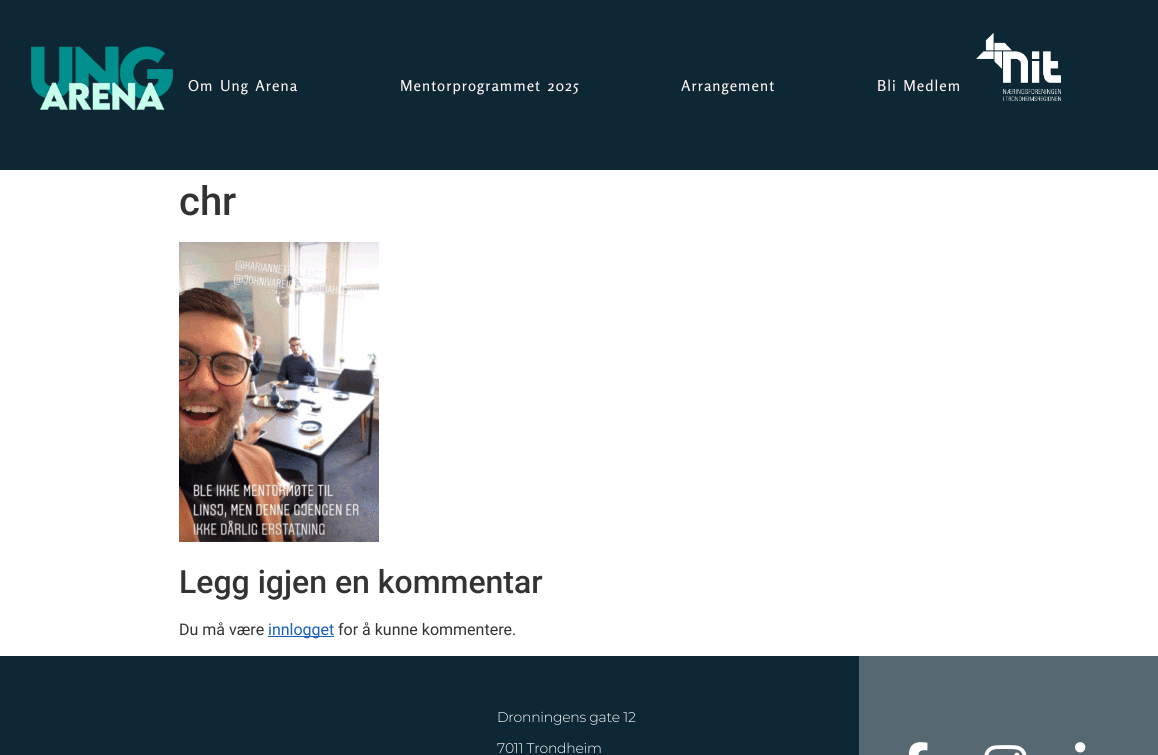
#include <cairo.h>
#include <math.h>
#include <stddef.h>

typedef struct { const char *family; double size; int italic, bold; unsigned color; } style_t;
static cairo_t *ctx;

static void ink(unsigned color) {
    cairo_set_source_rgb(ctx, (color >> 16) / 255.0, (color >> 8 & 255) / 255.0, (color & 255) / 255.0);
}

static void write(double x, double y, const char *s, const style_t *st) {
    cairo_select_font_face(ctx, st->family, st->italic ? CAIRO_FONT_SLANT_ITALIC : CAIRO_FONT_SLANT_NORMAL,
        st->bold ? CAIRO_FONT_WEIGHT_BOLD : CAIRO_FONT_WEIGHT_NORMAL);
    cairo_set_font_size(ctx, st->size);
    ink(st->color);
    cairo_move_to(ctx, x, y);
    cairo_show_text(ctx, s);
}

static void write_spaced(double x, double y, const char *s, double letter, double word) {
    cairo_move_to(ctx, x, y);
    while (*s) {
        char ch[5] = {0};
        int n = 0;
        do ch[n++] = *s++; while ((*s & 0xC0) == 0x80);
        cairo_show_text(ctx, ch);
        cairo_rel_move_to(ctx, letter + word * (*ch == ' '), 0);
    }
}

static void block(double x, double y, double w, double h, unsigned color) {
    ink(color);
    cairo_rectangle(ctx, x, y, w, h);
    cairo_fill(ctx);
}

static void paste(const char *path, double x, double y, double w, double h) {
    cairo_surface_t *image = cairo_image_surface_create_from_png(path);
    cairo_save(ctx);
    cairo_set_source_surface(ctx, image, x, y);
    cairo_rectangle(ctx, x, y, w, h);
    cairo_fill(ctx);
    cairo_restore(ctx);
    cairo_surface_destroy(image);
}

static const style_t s1 = {"Roboto Medium", 40, 0, 0, 0x333333};
static const style_t s2 = {"Roboto Medium", 32, 0, 0, 0x333333};
static const style_t s3 = {"Roboto", 16, 0, 0, 0x333333};
static const style_t s4 = {"Roboto", 16, 0, 0, 0x175fc0};

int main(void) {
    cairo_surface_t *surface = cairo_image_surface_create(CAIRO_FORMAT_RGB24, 1158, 755);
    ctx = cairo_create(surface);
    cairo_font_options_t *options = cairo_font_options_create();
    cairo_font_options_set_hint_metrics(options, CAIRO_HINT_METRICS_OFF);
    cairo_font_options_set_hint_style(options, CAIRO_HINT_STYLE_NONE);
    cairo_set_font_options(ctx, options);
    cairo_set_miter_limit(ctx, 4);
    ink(0xffffff);
    cairo_paint(ctx);
    block(0, 0, 1158, 170, 0x0d2734);
    paste("pic1.png", 31, 46, 142, 64);
    cairo_select_font_face(ctx, "Rosario Medium", CAIRO_FONT_SLANT_NORMAL, CAIRO_FONT_WEIGHT_NORMAL);
    cairo_set_font_size(ctx, 15);
    ink(0xfff3f3);
    write_spaced(188, 91, "Om Ung Arena", 1, 2);
    write_spaced(400, 91, "Mentorprogrammet 2025", 1, 2);
    write_spaced(681, 91, "Arrangement", 1, 0);
    write_spaced(877, 91, "Bli Medlem", 1, 2);
    paste("pic2.png", 976, 33, 85, 68);
    write(179, 215, "chr", &s1);
    paste("pic3.png", 179, 242, 200, 300);
    write(179, 593, "Legg igjen en kommentar", &s2);
    write(179, 635, "Du må være", &s3);
    block(268, 636, 66, 1, 0x175fc0);
    write(268, 635, "innlogget", &s4);
    write(338, 635, "for å kunne kommentere.", &s3);
    block(0, 656, 859, 99, 0x0d2734);
    cairo_select_font_face(ctx, "Montserrat Light", CAIRO_FONT_SLANT_NORMAL, CAIRO_FONT_WEIGHT_NORMAL);
    cairo_set_font_size(ctx, 14);
    ink(0xffffff);
    write_spaced(497, 722, "Dronningens gate 12", -0.25, 0);
    write_spaced(497, 753, "7011 Trondheim", -0.25, 0);
    block(859, 656, 299, 99, 0x566871);
    paste("pic4.png", 908, 742, 20, 13);
    paste("pic5.png", 984, 745, 43, 10);
    paste("pic6.png", 1075, 742, 11, 11);
    cairo_surface_write_to_png(surface, "screenshot.png");
    cairo_font_options_destroy(options);
    cairo_destroy(ctx);
    cairo_surface_destroy(surface);
    return 0;
}
